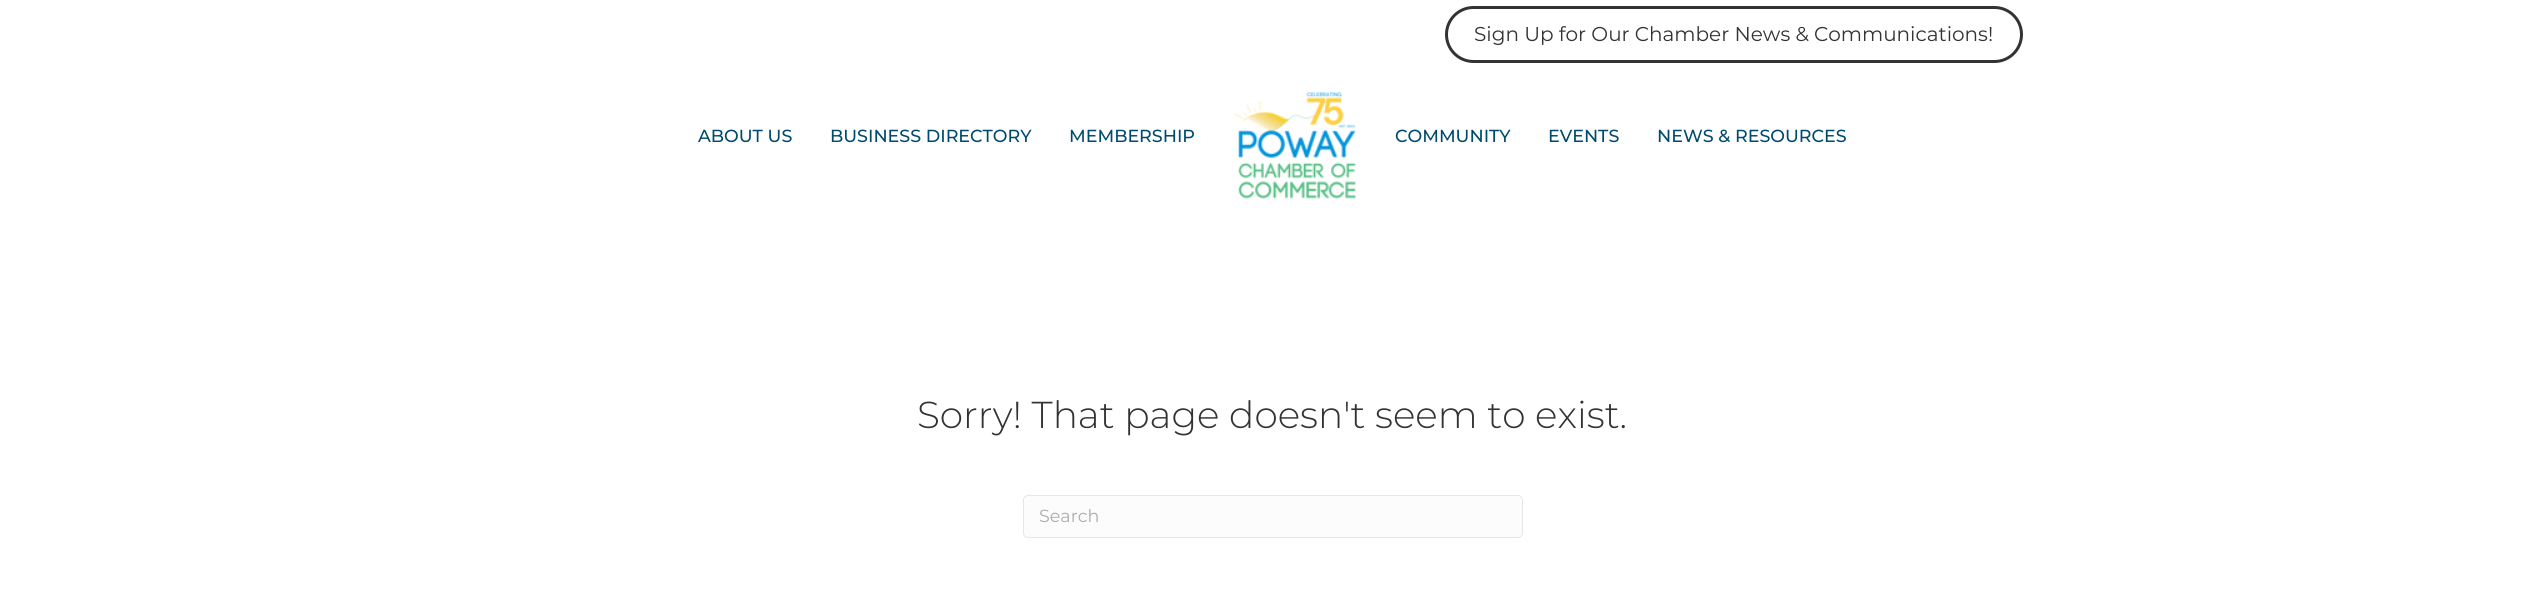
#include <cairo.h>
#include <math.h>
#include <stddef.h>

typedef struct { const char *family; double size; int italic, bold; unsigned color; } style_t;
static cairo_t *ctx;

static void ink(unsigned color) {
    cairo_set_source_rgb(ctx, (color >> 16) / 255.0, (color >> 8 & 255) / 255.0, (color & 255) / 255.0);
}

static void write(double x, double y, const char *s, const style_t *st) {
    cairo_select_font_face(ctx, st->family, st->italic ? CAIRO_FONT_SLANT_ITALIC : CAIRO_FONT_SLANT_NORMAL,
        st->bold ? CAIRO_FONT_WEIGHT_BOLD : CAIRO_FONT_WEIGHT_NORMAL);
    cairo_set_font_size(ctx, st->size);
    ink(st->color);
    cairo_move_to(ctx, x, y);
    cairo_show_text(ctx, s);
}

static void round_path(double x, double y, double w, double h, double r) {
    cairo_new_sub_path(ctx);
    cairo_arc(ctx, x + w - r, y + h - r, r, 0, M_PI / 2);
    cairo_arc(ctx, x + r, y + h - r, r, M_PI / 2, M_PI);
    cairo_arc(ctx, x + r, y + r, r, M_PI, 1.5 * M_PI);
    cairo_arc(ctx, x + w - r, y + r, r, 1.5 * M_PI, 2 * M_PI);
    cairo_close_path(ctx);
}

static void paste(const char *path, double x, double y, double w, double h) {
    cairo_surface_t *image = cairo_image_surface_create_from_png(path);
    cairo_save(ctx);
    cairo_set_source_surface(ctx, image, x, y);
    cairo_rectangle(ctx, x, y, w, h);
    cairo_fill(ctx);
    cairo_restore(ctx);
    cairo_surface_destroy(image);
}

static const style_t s1 = {"Montserrat", 20, 0, 0, 0x333333};
static const style_t s2 = {"Montserrat Medium", 17.5, 0, 0, 0x004b6d};
static const style_t s3 = {"Montserrat Light", 37.5, 0, 0, 0x333333};
static const style_t s4 = {"Montserrat", 17.5, 0, 0, 0xacacac};

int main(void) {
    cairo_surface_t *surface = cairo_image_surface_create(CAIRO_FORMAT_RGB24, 2544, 592);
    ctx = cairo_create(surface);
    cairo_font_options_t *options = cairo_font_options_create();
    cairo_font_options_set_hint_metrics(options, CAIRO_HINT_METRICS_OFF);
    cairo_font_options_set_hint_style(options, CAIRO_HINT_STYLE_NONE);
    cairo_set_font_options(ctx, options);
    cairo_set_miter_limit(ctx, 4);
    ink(0xffffff);
    cairo_paint(ctx);
    round_path(1446.5, 7.5, 575, 54, 27);
    ink(0x333333);
    cairo_set_line_width(ctx, 3);
    cairo_stroke(ctx);
    write(1474, 41, "Sign Up for Our Chamber News & Communications!", &s1);
    write(698, 142, "ABOUT US", &s2);
    write(830, 142, "BUSINESS DIRECTORY", &s2);
    write(1069, 142, "MEMBERSHIP", &s2);
    paste("pic1.png", 1234, 91, 123, 108);
    write(1395, 142, "COMMUNITY", &s2);
    write(1548, 142, "EVENTS", &s2);
    write(1657, 142, "NEWS & RESOURCES", &s2);
    write(917, 428, "Sorry! That page doesn't seem to exist.", &s3);
    ink(0xfcfcfc);
    round_path(1023.5, 495.5, 499, 42, 4.5);
    cairo_fill_preserve(ctx);
    ink(0xe6e6e6);
    cairo_set_line_width(ctx, 1);
    cairo_stroke(ctx);
    write(1039, 522, "Search", &s4);
    cairo_surface_write_to_png(surface, "screenshot.png");
    cairo_font_options_destroy(options);
    cairo_destroy(ctx);
    cairo_surface_destroy(surface);
    return 0;
}
